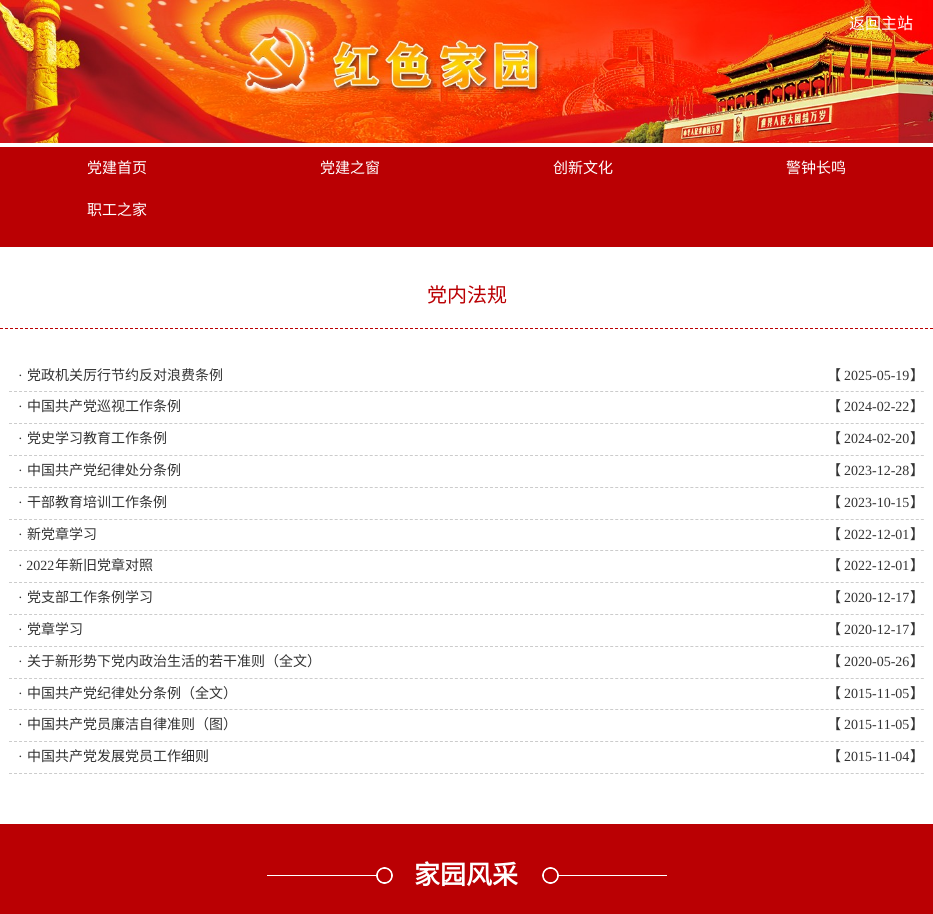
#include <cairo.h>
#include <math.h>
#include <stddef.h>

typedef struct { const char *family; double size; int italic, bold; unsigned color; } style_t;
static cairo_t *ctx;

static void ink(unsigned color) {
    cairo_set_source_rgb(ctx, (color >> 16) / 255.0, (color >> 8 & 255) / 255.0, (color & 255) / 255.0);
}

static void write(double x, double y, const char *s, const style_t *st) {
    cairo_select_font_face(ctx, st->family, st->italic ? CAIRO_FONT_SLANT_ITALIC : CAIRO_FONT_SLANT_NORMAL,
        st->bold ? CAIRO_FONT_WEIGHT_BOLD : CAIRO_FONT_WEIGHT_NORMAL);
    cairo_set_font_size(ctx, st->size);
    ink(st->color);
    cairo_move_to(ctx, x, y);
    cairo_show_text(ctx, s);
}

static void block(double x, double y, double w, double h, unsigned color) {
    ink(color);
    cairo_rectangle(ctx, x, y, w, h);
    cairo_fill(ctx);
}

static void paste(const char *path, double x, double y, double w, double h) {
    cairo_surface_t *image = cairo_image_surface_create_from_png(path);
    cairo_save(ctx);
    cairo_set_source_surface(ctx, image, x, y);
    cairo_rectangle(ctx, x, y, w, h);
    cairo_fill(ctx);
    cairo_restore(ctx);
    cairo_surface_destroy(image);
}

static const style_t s1 = {"Noto Sans CJK SC", 16, 0, 0, 0xffffff};
static const style_t s2 = {"Noto Sans CJK SC", 15, 0, 0, 0xffffff};
static const style_t s3 = {"Noto Sans CJK SC", 20, 0, 0, 0xba0003};
static const style_t s4 = {"Liberation Serif", 14, 0, 0, 0x333333};
static const style_t s5 = {"Noto Sans CJK SC", 14, 0, 0, 0x333333};
static const style_t s6 = {"Noto Sans CJK SC", 26, 0, 1, 0xffffff};

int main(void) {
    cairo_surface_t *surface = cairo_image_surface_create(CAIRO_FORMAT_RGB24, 933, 914);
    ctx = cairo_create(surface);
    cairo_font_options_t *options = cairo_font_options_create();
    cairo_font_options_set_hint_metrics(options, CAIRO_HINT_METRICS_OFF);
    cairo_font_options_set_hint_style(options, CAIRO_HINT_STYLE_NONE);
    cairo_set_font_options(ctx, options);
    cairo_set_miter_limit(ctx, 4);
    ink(0xffffff);
    cairo_paint(ctx);
    paste("pic1.png", 0, 0, 933, 143);
    write(849, 29, "返回主站", &s1);
    block(0, 147, 933, 100, 0xba0003);
    write(87, 173, "党建首页", &s2);
    write(320, 173, "党建之窗", &s2);
    write(553, 173, "创新文化", &s2);
    write(786, 173, "警钟长鸣", &s2);
    write(87, 215, "职工之家", &s2);
    cairo_new_path(ctx);
    cairo_move_to(ctx, 0, 328.5);
    cairo_line_to(ctx, 933, 328.5);
    ink(0xba0003);
    cairo_set_line_width(ctx, 1);
    cairo_set_dash(ctx, (double[]){3, 2}, 2, 0);
    cairo_stroke(ctx);
    write(427, 302, "党内法规", &s3);
    cairo_new_path(ctx);
    cairo_move_to(ctx, 9, 391.5);
    cairo_line_to(ctx, 924, 391.5);
    ink(0xcccccc);
    cairo_set_dash(ctx, (double[]){3, 2.01}, 2, 0);
    cairo_stroke(ctx);
    write(18, 380, "·", &s4);
    write(27, 380, "党政机关厉行节约反对浪费条例", &s5);
    write(827, 380, "【", &s5);
    write(844, 380, "2025-05-19", &s4);
    write(910, 380, "】", &s5);
    cairo_new_path(ctx);
    cairo_move_to(ctx, 9, 423.5);
    cairo_line_to(ctx, 924, 423.5);
    ink(0xcccccc);
    cairo_stroke(ctx);
    write(18, 411, "·", &s4);
    write(27, 411, "中国共产党巡视工作条例", &s5);
    write(827, 411, "【", &s5);
    write(844, 411, "2024-02-22", &s4);
    write(910, 411, "】", &s5);
    cairo_new_path(ctx);
    cairo_move_to(ctx, 9, 455.5);
    cairo_line_to(ctx, 924, 455.5);
    ink(0xcccccc);
    cairo_stroke(ctx);
    write(18, 443, "·", &s4);
    write(27, 443, "党史学习教育工作条例", &s5);
    write(827, 443, "【", &s5);
    write(844, 443, "2024-02-20", &s4);
    write(910, 443, "】", &s5);
    cairo_new_path(ctx);
    cairo_move_to(ctx, 9, 487.5);
    cairo_line_to(ctx, 924, 487.5);
    ink(0xcccccc);
    cairo_stroke(ctx);
    write(18, 475, "·", &s4);
    write(27, 475, "中国共产党纪律处分条例", &s5);
    write(827, 475, "【", &s5);
    write(844, 475, "2023-12-28", &s4);
    write(910, 475, "】", &s5);
    cairo_new_path(ctx);
    cairo_move_to(ctx, 9, 519.5);
    cairo_line_to(ctx, 924, 519.5);
    ink(0xcccccc);
    cairo_stroke(ctx);
    write(18, 507, "·", &s4);
    write(27, 507, "干部教育培训工作条例", &s5);
    write(827, 507, "【", &s5);
    write(844, 507, "2023-10-15", &s4);
    write(910, 507, "】", &s5);
    cairo_new_path(ctx);
    cairo_move_to(ctx, 9, 550.5);
    cairo_line_to(ctx, 924, 550.5);
    ink(0xcccccc);
    cairo_stroke(ctx);
    write(18, 539, "·", &s4);
    write(27, 539, "新党章学习", &s5);
    write(827, 539, "【", &s5);
    write(844, 539, "2022-12-01", &s4);
    write(910, 539, "】", &s5);
    cairo_new_path(ctx);
    cairo_move_to(ctx, 9, 582.5);
    cairo_line_to(ctx, 924, 582.5);
    ink(0xcccccc);
    cairo_stroke(ctx);
    write(18, 570, "· 2022", &s4);
    write(55, 570, "年新旧党章对照", &s5);
    write(827, 570, "【", &s5);
    write(844, 570, "2022-12-01", &s4);
    write(910, 570, "】", &s5);
    cairo_new_path(ctx);
    cairo_move_to(ctx, 9, 614.5);
    cairo_line_to(ctx, 924, 614.5);
    ink(0xcccccc);
    cairo_stroke(ctx);
    write(18, 602, "·", &s4);
    write(27, 602, "党支部工作条例学习", &s5);
    write(827, 602, "【", &s5);
    write(844, 602, "2020-12-17", &s4);
    write(910, 602, "】", &s5);
    cairo_new_path(ctx);
    cairo_move_to(ctx, 9, 646.5);
    cairo_line_to(ctx, 924, 646.5);
    ink(0xcccccc);
    cairo_stroke(ctx);
    write(18, 634, "·", &s4);
    write(27, 634, "党章学习", &s5);
    write(827, 634, "【", &s5);
    write(844, 634, "2020-12-17", &s4);
    write(910, 634, "】", &s5);
    cairo_new_path(ctx);
    cairo_move_to(ctx, 9, 678.5);
    cairo_line_to(ctx, 924, 678.5);
    ink(0xcccccc);
    cairo_stroke(ctx);
    write(18, 666, "·", &s4);
    write(27, 666, "关于新形势下党内政治生活的若干准则（全文）", &s5);
    write(827, 666, "【", &s5);
    write(844, 666, "2020-05-26", &s4);
    write(910, 666, "】", &s5);
    cairo_new_path(ctx);
    cairo_move_to(ctx, 9, 709.5);
    cairo_line_to(ctx, 924, 709.5);
    ink(0xcccccc);
    cairo_stroke(ctx);
    write(18, 698, "·", &s4);
    write(27, 698, "中国共产党纪律处分条例（全文）", &s5);
    write(827, 698, "【", &s5);
    write(844, 698, "2015-11-05", &s4);
    write(910, 698, "】", &s5);
    cairo_new_path(ctx);
    cairo_move_to(ctx, 9, 741.5);
    cairo_line_to(ctx, 924, 741.5);
    ink(0xcccccc);
    cairo_stroke(ctx);
    write(18, 729, "·", &s4);
    write(27, 729, "中国共产党员廉洁自律准则（图）", &s5);
    write(827, 729, "【", &s5);
    write(844, 729, "2015-11-05", &s4);
    write(910, 729, "】", &s5);
    cairo_new_path(ctx);
    cairo_move_to(ctx, 9, 773.5);
    cairo_line_to(ctx, 924, 773.5);
    ink(0xcccccc);
    cairo_stroke(ctx);
    write(18, 761, "·", &s4);
    write(27, 761, "中国共产党发展党员工作细则", &s5);
    write(827, 761, "【", &s5);
    write(844, 761, "2015-11-04", &s4);
    write(910, 761, "】", &s5);
    block(0, 824, 933, 90, 0xba0003);
    paste("pic2.png", 267, 867, 400, 17);
    write(414, 884, "家园风采", &s6);
    cairo_surface_write_to_png(surface, "screenshot.png");
    cairo_font_options_destroy(options);
    cairo_destroy(ctx);
    cairo_surface_destroy(surface);
    return 0;
}
